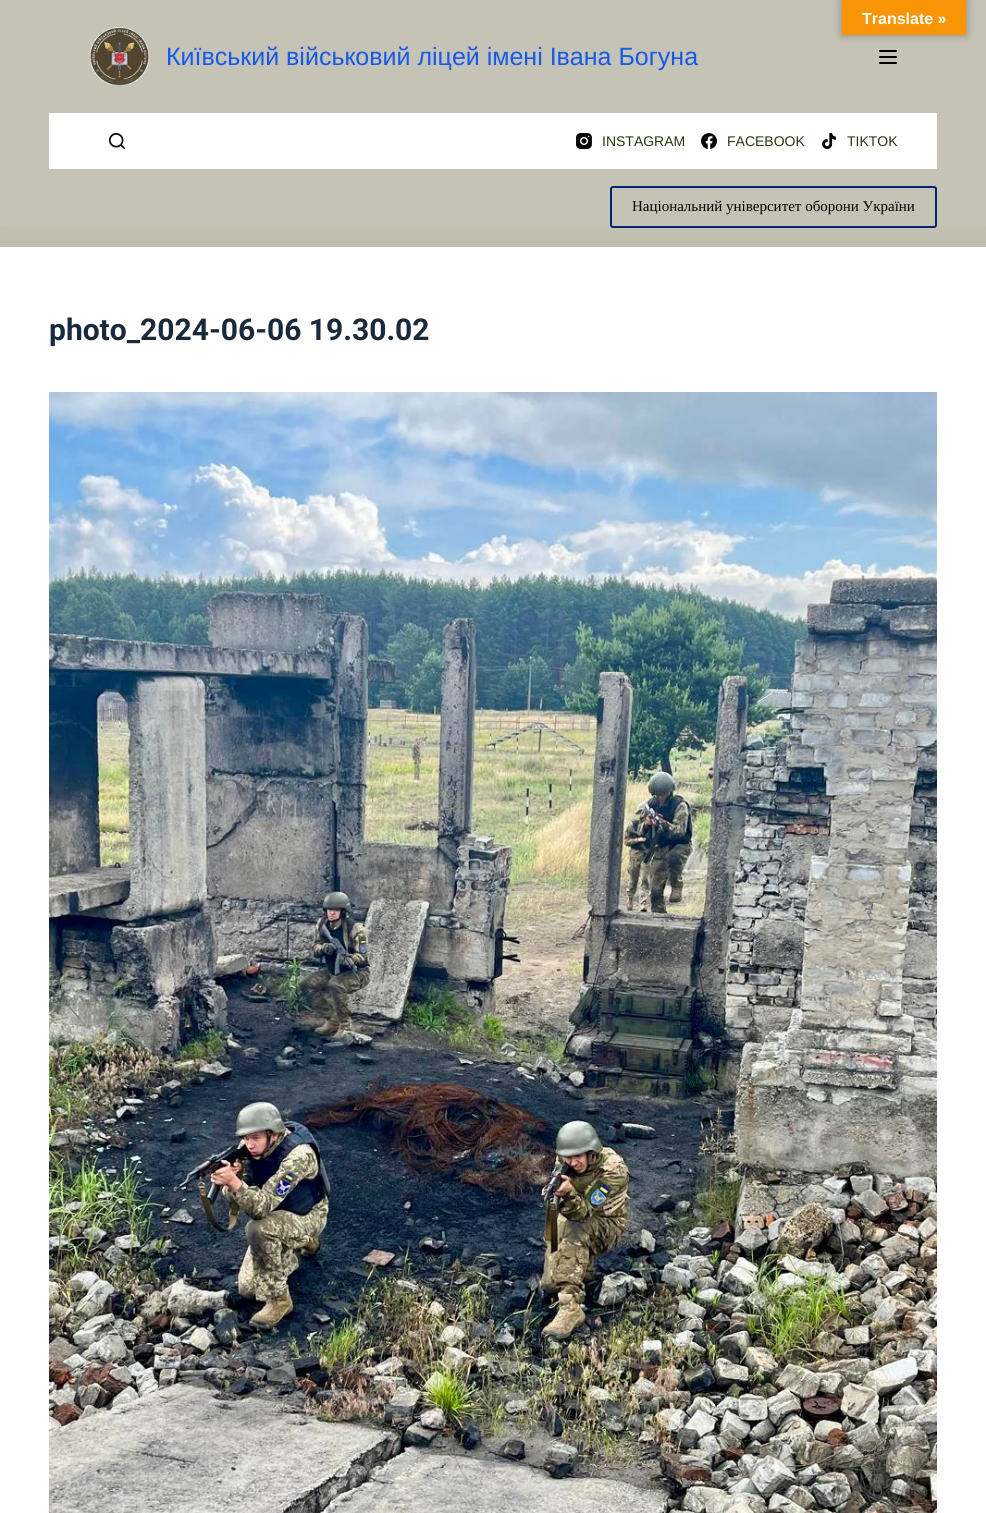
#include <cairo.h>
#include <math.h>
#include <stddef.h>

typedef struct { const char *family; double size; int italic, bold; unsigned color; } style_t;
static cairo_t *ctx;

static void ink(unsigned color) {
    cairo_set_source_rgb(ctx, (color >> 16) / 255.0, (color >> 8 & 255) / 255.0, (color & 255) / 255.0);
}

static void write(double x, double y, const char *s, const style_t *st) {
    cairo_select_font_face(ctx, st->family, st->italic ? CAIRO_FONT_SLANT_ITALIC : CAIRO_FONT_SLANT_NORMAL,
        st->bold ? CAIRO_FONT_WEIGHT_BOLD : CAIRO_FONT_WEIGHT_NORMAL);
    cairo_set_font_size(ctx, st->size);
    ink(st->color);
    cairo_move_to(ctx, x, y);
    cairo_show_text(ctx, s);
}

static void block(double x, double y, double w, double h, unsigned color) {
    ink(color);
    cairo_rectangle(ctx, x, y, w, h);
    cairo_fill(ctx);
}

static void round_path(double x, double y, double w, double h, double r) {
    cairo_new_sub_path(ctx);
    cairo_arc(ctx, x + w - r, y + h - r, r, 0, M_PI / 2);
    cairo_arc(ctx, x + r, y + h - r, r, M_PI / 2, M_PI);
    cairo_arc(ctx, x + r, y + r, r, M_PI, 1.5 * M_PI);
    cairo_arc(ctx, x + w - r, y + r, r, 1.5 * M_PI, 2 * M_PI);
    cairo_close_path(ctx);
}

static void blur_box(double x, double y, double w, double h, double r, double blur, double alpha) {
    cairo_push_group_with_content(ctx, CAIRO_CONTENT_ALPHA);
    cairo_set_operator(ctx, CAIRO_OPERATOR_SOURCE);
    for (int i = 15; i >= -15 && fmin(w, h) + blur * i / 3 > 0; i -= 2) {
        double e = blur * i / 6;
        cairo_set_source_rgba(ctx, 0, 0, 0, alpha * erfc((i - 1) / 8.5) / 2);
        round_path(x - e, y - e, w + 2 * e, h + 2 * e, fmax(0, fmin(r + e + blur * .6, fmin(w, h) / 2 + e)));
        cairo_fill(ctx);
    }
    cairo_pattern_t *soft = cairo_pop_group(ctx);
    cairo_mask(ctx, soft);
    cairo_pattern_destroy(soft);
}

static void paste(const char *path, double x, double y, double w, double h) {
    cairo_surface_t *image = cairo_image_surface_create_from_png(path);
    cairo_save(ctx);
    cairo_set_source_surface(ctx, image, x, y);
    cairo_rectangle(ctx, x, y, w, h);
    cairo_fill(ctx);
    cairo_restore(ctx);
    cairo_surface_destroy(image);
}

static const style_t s1 = {"Liberation Sans", 16, 0, 1, 0xffffff};
static const style_t s2 = {"Liberation Sans", 25, 0, 0, 0x1559ed};
static const style_t s3 = {"Liberation Sans", 14, 0, 0, 0x26380f};
static const style_t s4 = {"Liberation Serif", 15, 0, 0, 0x000000};
static const style_t s5 = {"Roboto", 30, 0, 1, 0x192a3d};

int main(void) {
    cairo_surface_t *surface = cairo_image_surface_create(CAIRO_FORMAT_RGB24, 986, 1513);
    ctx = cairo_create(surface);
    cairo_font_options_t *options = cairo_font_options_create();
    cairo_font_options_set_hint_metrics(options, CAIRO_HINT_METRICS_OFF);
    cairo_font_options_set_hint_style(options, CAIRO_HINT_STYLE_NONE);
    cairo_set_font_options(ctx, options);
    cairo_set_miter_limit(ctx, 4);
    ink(0xffffff);
    cairo_paint(ctx);
    block(0, 0, 986, 247, 0xc4c3b5);
    ink(0x000000);
    blur_box(842, 0, 124, 35, 0, 4.5, 0.3);
    block(842, 0, 124, 35, 0xf89406);
    write(862, 24, "Translate »", &s1);
    paste("pic1.png", 89, 27, 61, 59);
    write(166, 65, "Київський військовий ліцей імені Івана Богуна", &s2);
    ink(0x000000);
    round_path(879, 50, 18, 2, 1);
    cairo_fill(ctx);
    round_path(879, 56, 18, 2, 1);
    cairo_fill(ctx);
    round_path(879, 62, 18, 2, 1);
    cairo_fill(ctx);
    block(49, 113, 888, 56, 0xffffff);
    paste("pic2.png", 109, 133, 16, 16);
    paste("pic3.png", 576, 133, 16, 16);
    write(602, 146, "INSTAGRAM", &s3);
    paste("pic4.png", 701, 133, 16, 16);
    write(727, 146, "FACEBOOK", &s3);
    paste("pic5.png", 822, 133, 14, 16);
    write(847, 146, "TIKTOK", &s3);
    cairo_save(ctx);
    cairo_rectangle(ctx, 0, 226, 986, 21);
    cairo_clip(ctx);
    ink(0x7a7756);
    blur_box(0, 277, 986, 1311, 0, 25, 1);
    cairo_restore(ctx);
    round_path(611, 187, 325, 40, 2);
    ink(0x022571);
    cairo_stroke(ctx);
    write(632, 211, "Національний університет оборони України", &s4);
    write(49, 340, "photo_2024-06-06 19.30.02", &s5);
    paste("pic6.png", 49, 392, 888, 1121);
    cairo_surface_write_to_png(surface, "screenshot.png");
    cairo_font_options_destroy(options);
    cairo_destroy(ctx);
    cairo_surface_destroy(surface);
    return 0;
}
